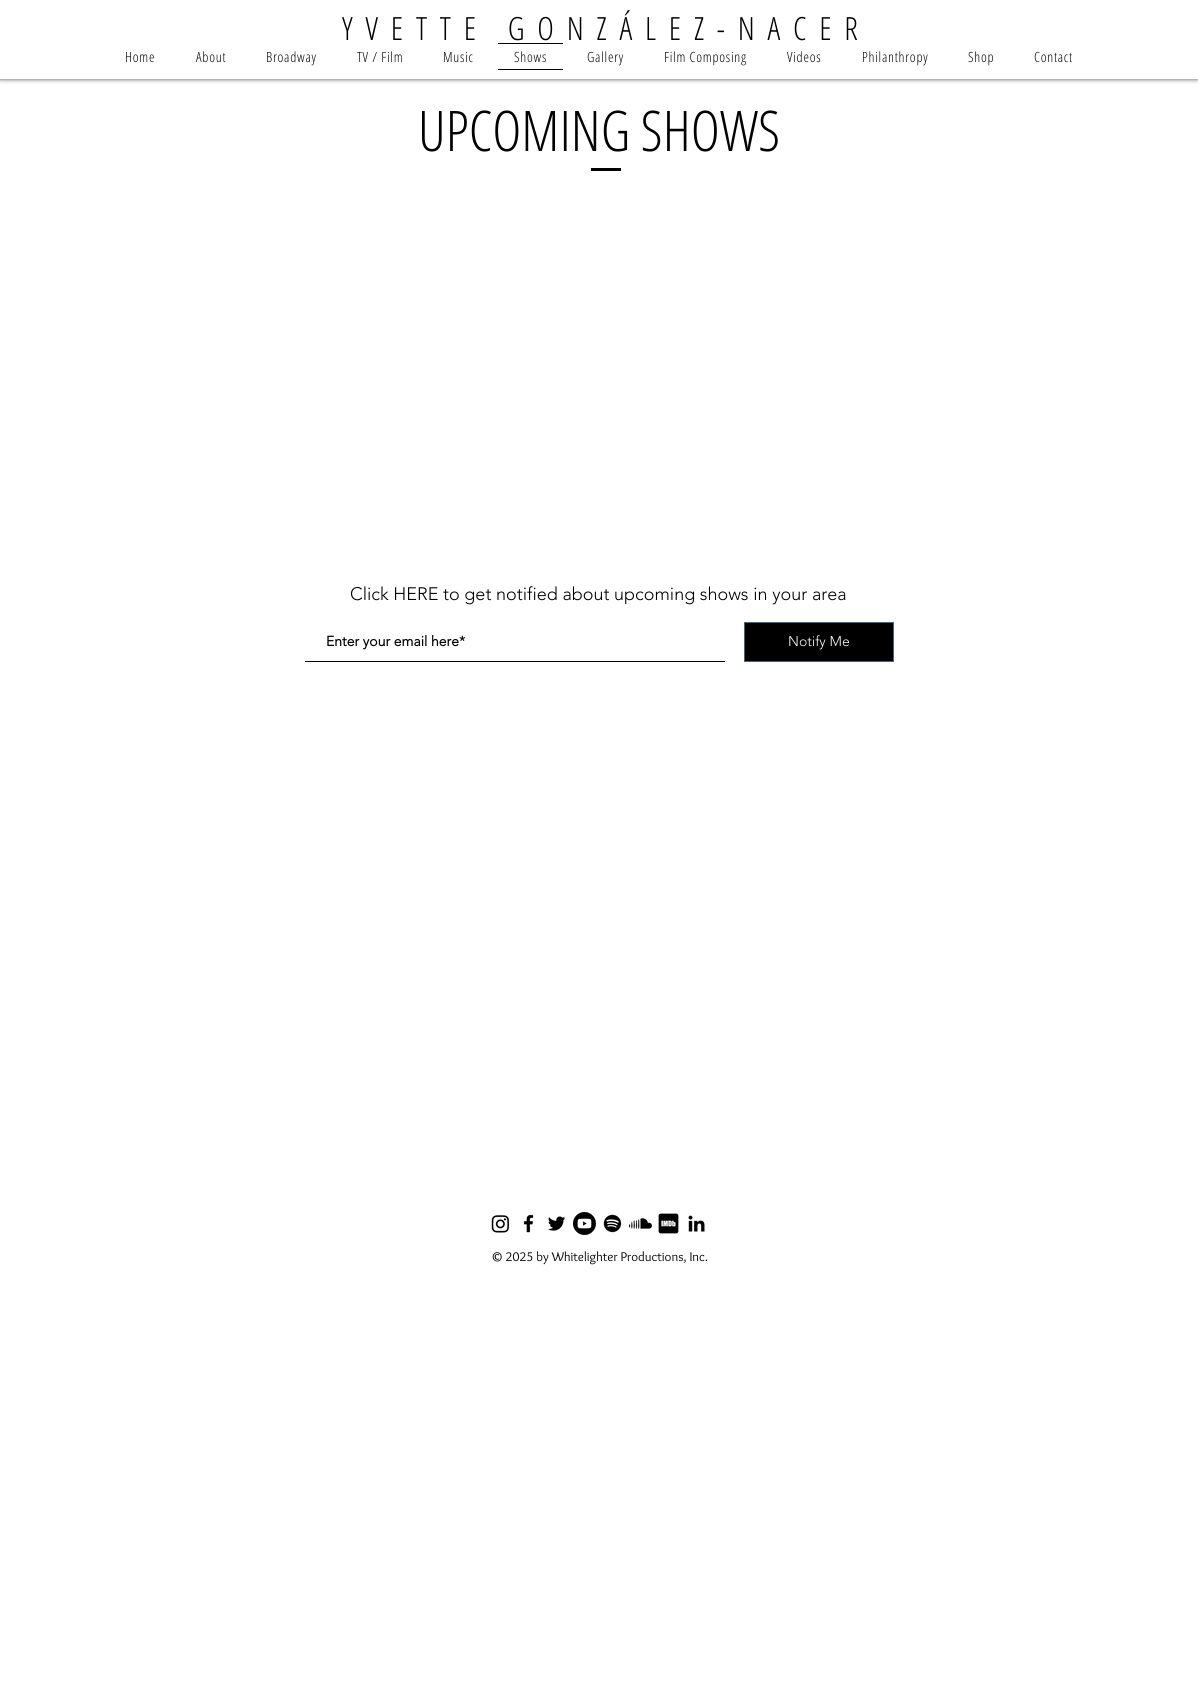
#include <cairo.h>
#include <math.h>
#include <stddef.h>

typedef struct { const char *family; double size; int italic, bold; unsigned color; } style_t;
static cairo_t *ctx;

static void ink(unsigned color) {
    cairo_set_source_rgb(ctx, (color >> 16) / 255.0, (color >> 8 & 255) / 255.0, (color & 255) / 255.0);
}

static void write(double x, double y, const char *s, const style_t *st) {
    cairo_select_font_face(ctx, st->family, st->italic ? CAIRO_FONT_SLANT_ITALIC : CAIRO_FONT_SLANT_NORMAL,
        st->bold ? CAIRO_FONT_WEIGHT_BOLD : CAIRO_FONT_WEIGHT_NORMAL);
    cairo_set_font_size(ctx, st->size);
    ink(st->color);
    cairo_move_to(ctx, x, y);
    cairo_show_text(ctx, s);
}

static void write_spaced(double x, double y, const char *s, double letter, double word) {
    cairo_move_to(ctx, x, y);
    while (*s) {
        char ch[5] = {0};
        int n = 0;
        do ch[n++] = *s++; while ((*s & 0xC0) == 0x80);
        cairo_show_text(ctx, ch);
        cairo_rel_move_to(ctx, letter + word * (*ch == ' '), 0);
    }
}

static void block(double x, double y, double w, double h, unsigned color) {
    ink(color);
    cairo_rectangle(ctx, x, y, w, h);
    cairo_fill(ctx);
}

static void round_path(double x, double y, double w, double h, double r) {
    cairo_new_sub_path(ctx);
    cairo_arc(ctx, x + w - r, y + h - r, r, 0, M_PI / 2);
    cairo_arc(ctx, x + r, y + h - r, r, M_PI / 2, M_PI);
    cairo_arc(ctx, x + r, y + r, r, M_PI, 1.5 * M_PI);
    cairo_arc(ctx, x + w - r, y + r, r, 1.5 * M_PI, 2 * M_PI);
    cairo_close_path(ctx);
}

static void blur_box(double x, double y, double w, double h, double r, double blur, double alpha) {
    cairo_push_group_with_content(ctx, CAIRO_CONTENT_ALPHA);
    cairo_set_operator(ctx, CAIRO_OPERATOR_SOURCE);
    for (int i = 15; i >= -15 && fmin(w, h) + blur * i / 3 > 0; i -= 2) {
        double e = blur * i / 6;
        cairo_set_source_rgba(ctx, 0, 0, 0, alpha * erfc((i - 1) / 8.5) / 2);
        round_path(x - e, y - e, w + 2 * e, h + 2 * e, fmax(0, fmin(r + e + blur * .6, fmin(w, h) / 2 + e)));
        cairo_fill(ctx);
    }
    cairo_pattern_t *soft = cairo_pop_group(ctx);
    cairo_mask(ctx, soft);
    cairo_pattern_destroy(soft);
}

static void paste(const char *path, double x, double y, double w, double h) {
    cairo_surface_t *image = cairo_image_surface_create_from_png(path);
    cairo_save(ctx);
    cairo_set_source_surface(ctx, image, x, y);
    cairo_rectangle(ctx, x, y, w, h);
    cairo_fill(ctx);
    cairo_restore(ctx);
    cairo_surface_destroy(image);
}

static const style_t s1 = {"Open Sans Condensed Light", 56, 0, 0, 0x000000};
static const style_t s2 = {"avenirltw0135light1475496 Light", 18, 0, 0, 0x000000};
static const style_t s3 = {"avenirltw0135light1475496", 14, 0, 1, 0x000000};
static const style_t s4 = {"avenirltw0135light1475496 Light", 14, 0, 0, 0xffffff};
static const style_t s5 = {"Overlock", 13, 0, 0, 0x000000};

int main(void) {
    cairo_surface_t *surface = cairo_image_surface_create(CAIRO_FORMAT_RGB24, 1198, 1700);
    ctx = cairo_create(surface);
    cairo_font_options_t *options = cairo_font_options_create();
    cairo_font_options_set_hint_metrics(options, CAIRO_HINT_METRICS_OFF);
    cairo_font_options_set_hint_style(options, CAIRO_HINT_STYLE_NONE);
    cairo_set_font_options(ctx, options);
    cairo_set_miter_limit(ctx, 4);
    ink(0xffffff);
    cairo_paint(ctx);
    cairo_save(ctx);
    cairo_rectangle(ctx, 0, 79, 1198, 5);
    cairo_clip(ctx);
    ink(0x000000);
    blur_box(0, 0, 1198, 79, 0, 2.5, 0.7);
    cairo_restore(ctx);
    cairo_select_font_face(ctx, "Open Sans Condensed Light", CAIRO_FONT_SLANT_NORMAL, CAIRO_FONT_WEIGHT_NORMAL);
    cairo_set_font_size(ctx, 32);
    ink(0x000000);
    write_spaced(342, 40, "YVETTE GONZÁLEZ-NACER", 12.8, 0);
    cairo_set_font_size(ctx, 14);
    write_spaced(125, 62, "Home", 0.75, 0);
    write_spaced(196, 62, "About", 0.75, 0);
    write_spaced(266, 62, "Broadway", 0.75, 0);
    write_spaced(357, 62, "TV / Film", 0.75, 0);
    write_spaced(443, 62, "Music", 0.75, 0);
    block(498, 43, 65, 1, 0x000000);
    block(498, 69, 65, 1, 0x000000);
    write_spaced(514, 62, "Shows", 0.75, 0);
    write_spaced(587, 62, "Gallery", 0.75, 0);
    write_spaced(664, 62, "Film Composing", 0.75, 0);
    write_spaced(787, 62, "Videos", 0.75, 0);
    write_spaced(862, 62, "Philanthropy", 0.75, 0);
    write_spaced(968, 62, "Shop", 0.75, 0);
    write_spaced(1034, 62, "Contact", 0.75, 0);
    write(418, 151, "UPCOMING SHOWS", &s1);
    block(591, 168, 30, 3, 0x000000);
    write(350, 600, "Click HERE to get notified about upcoming shows in your area", &s2);
    block(305, 661, 420, 1, 0x000000);
    write(326, 646, "Enter your email here*", &s3);
    cairo_rectangle(ctx, 744.5, 622.5, 149, 39);
    cairo_fill_preserve(ctx);
    ink(0x416482);
    cairo_set_line_width(ctx, 1);
    cairo_stroke(ctx);
    write(788, 646, "Notify Me", &s4);
    paste("pic1.png", 491, 1215, 19, 18);
    paste("pic2.png", 523, 1214, 11, 19);
    paste("pic3.png", 548, 1216, 18, 15);
    paste("pic4.png", 573, 1212, 23, 23);
    paste("pic5.png", 603, 1214, 19, 19);
    paste("pic6.png", 629, 1218, 23, 11);
    paste("pic7.png", 658, 1213, 21, 21);
    paste("pic8.png", 688, 1215, 17, 17);
    write(491, 1261, "© 2025 by Whitelighter Productions, Inc.", &s5);
    cairo_surface_write_to_png(surface, "screenshot.png");
    cairo_font_options_destroy(options);
    cairo_destroy(ctx);
    cairo_surface_destroy(surface);
    return 0;
}
